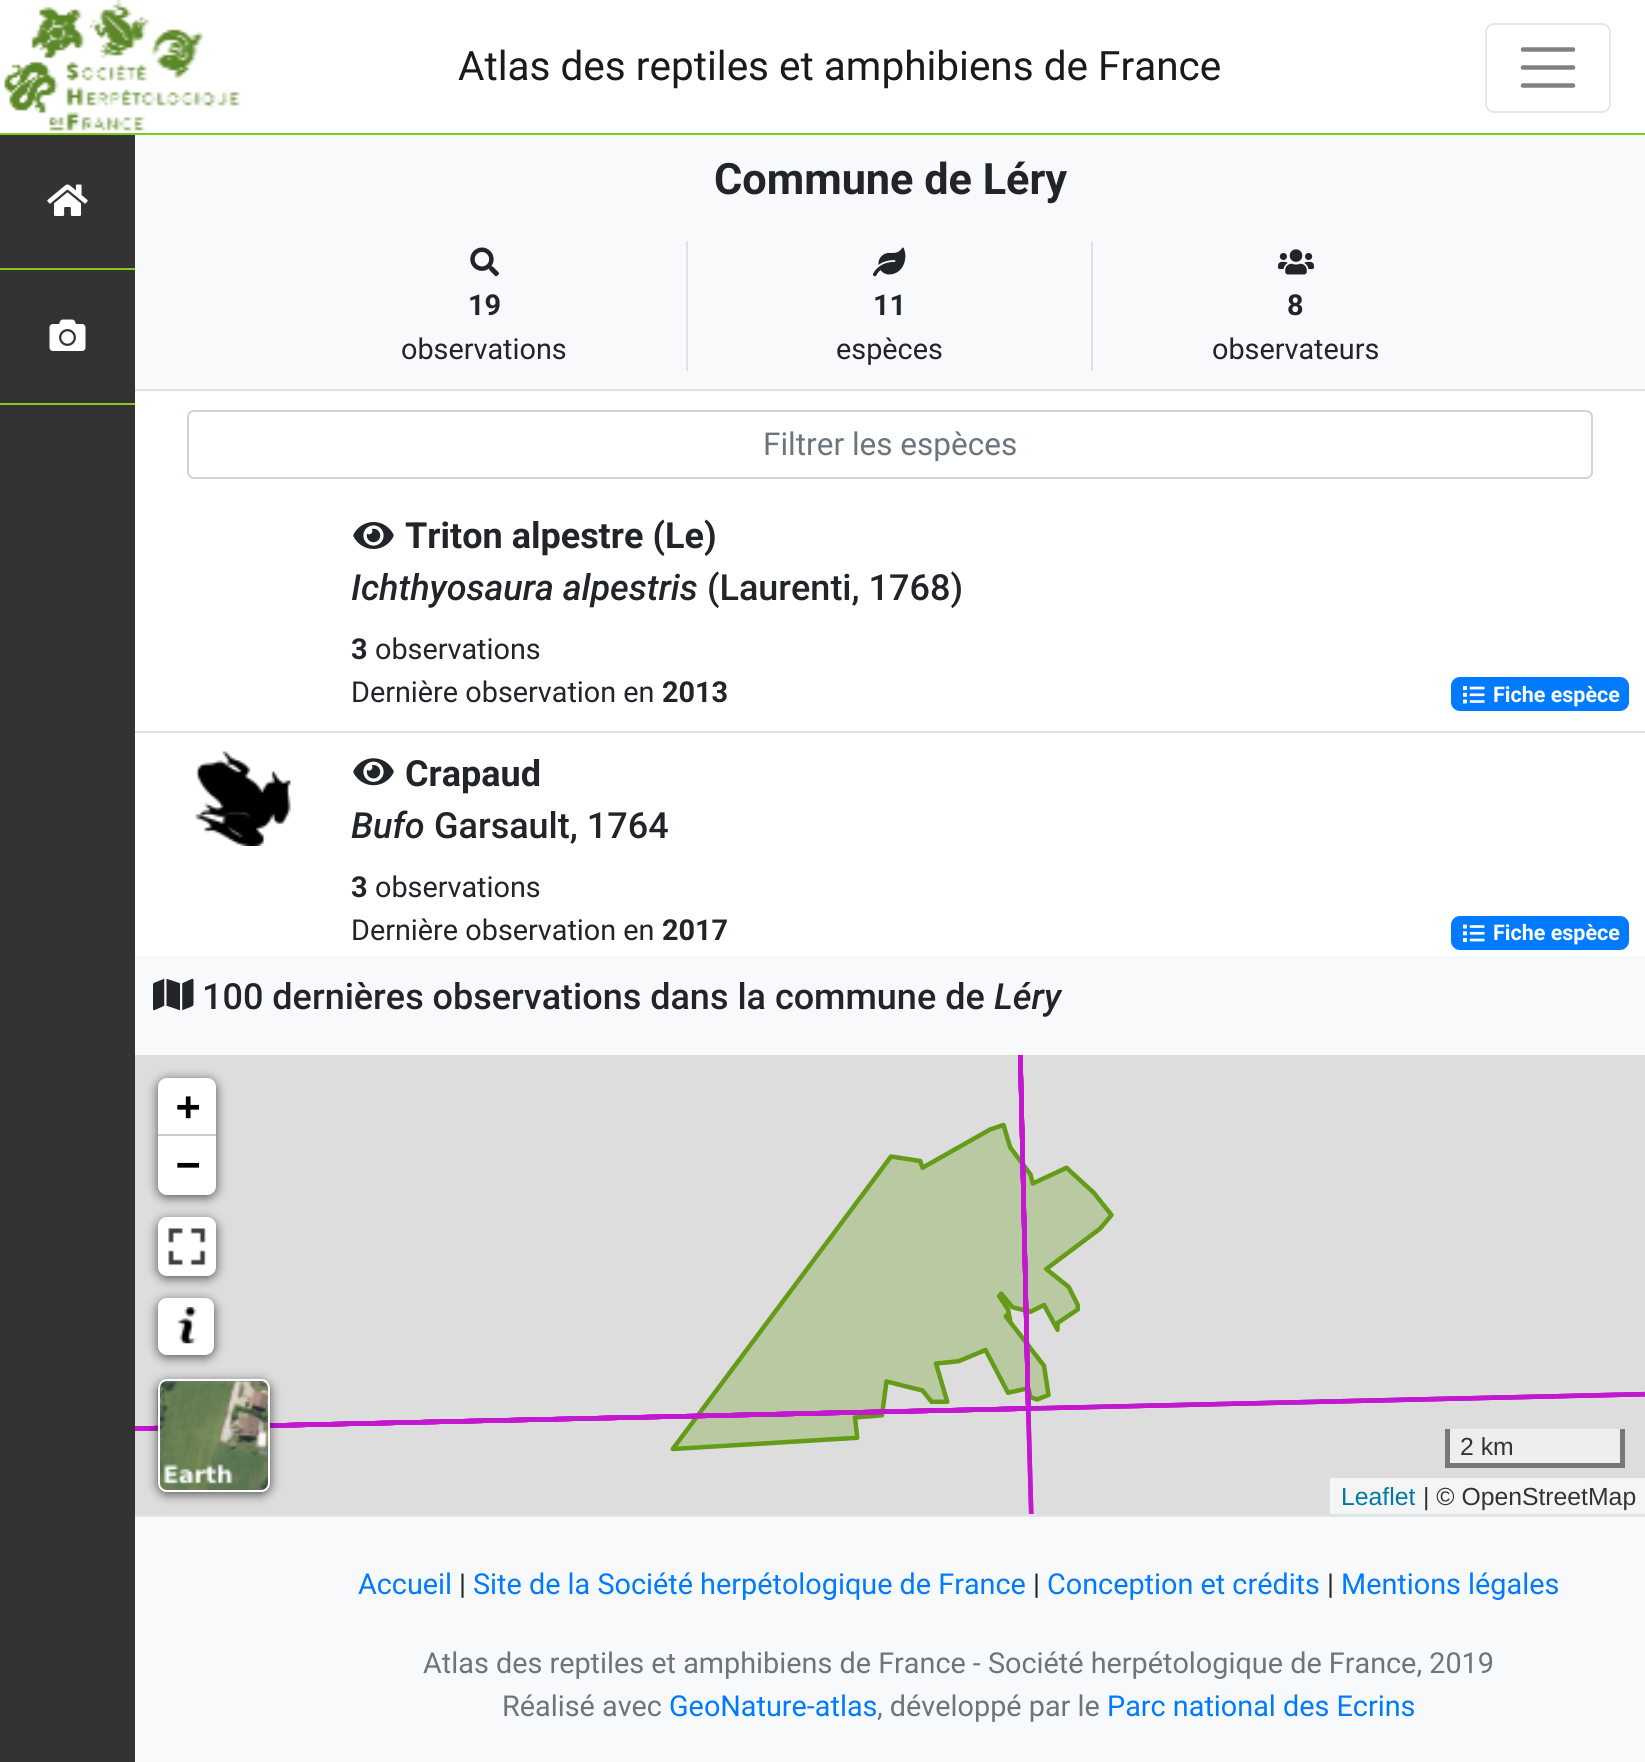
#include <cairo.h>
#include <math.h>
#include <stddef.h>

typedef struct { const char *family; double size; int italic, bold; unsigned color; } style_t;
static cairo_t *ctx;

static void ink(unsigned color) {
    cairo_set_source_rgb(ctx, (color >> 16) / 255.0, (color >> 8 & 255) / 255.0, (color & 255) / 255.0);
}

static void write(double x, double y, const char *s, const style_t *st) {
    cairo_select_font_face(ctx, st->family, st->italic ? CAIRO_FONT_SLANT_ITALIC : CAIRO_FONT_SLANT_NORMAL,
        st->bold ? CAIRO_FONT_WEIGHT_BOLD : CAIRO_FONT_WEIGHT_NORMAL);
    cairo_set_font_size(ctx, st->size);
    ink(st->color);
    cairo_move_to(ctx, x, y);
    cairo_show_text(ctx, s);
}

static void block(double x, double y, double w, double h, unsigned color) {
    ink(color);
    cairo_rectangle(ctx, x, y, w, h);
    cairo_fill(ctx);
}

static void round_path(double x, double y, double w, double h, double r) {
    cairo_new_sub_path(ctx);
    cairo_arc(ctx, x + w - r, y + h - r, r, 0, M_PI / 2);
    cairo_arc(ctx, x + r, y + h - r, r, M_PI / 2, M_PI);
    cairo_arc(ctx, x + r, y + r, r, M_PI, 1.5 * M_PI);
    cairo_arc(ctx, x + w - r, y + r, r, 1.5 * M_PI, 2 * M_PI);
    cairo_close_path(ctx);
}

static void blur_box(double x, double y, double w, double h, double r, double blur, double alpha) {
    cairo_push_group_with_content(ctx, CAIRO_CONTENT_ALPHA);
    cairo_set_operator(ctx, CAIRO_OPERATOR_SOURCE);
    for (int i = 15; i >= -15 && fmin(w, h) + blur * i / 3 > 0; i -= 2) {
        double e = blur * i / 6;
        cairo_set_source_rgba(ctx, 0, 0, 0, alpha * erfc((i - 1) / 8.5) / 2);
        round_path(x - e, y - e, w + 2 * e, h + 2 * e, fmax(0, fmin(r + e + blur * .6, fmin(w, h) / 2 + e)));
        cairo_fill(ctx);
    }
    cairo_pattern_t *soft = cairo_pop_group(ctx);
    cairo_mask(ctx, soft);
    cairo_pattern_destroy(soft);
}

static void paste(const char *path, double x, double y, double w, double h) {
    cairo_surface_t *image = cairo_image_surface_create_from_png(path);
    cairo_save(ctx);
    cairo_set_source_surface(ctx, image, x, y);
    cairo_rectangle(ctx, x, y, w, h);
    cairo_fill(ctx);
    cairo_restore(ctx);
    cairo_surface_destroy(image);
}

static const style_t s1 = {"Roboto", 40.5, 0, 0, 0x1a1a1a};
static const style_t s2 = {"Roboto", 43.25, 0, 1, 0x212529};
static const style_t s3 = {"Roboto", 28.8, 0, 1, 0x212529};
static const style_t s4 = {"Roboto", 28.8, 0, 0, 0x212529};
static const style_t s5 = {"Roboto", 31.5, 0, 0, 0x6c757d};
static const style_t s6 = {"Roboto", 36, 0, 1, 0x212529};
static const style_t s7 = {"Roboto Medium", 36, 1, 0, 0x212529};
static const style_t s8 = {"Roboto Medium", 36, 0, 0, 0x212529};
static const style_t s9 = {"Roboto", 21.5, 0, 1, 0xffffff};
static const style_t s10 = {"DejaVu Sans Mono", 40.5, 0, 1, 0x000000};
static const style_t s11 = {"Liberation Sans", 24.75, 0, 0, 0x333333};
static const style_t s12 = {"Liberation Sans", 24.75, 0, 0, 0x0078a8};
static const style_t s13 = {"Roboto", 28.8, 0, 0, 0x007bff};
static const style_t s14 = {"Roboto", 28.8, 0, 0, 0x6c757d};

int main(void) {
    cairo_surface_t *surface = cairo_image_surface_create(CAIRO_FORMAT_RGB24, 1645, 1762);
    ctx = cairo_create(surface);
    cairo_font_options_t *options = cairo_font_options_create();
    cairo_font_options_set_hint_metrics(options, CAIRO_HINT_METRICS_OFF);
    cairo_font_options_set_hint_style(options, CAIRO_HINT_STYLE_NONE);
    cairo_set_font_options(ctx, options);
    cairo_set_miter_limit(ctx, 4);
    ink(0xe3e7e8);
    cairo_paint(ctx);
    block(0, 0, 1645, 133, 0xffffff);
    block(0, 133, 1645, 2, 0x82c91e);
    paste("pic1.png", 4, 0, 237, 131);
    write(458, 80, "Atlas des reptiles et amphibiens de France", &s1);
    round_path(1486, 24, 124, 88, 8);
    ink(0xe6e6e6);
    cairo_stroke(ctx);
    cairo_new_path(ctx);
    cairo_move_to(ctx, 1523, 49.5);
    cairo_line_to(ctx, 1573, 49.5);
    cairo_move_to(ctx, 1523, 67.5);
    cairo_line_to(ctx, 1573, 67.5);
    cairo_move_to(ctx, 1523, 85.5);
    cairo_line_to(ctx, 1573, 85.5);
    ink(0x808080);
    cairo_set_line_width(ctx, 4.5);
    cairo_set_line_cap(ctx, CAIRO_LINE_CAP_ROUND);
    cairo_stroke(ctx);
    block(0, 135, 135, 1627, 0x333333);
    block(0, 268, 135, 2, 0x82c91e);
    paste("pic2.png", 47, 184, 41, 32);
    block(0, 403, 135, 2, 0x82c91e);
    paste("pic3.png", 49, 319, 37, 32);
    block(135, 1514, 1510, 2, 0xdee2e6);
    block(135, 135, 1510, 257, 0xf8f9fa);
    block(135, 389, 1510, 2, 0xdee2e6);
    write(714, 194, "Commune de Léry", &s2);
    block(686, 241, 2, 130, 0xdee2e6);
    paste("pic4.png", 470, 247, 29, 30);
    write(468, 315, "19", &s3);
    write(401, 359, "observations", &s4);
    block(1091, 241, 2, 130, 0xdee2e6);
    paste("pic5.png", 873, 247, 33, 30);
    write(873, 315, "11", &s3);
    write(836, 359, "espèces", &s4);
    paste("pic6.png", 1278, 249, 36, 26);
    write(1287, 315, "8", &s3);
    write(1212, 359, "observateurs", &s4);
    block(135, 392, 1510, 564, 0xffffff);
    round_path(188, 411, 1404, 67, 6);
    ink(0xced4da);
    cairo_set_line_width(ctx, 2);
    cairo_set_line_cap(ctx, CAIRO_LINE_CAP_BUTT);
    cairo_stroke(ctx);
    cairo_save(ctx);
    cairo_rectangle(ctx, 207, 425, 1366, 36);
    cairo_clip(ctx);
    write(763, 455, "Filtrer les espèces", &s5);
    cairo_restore(ctx);
    block(135, 731, 1510, 2, 0xdee2e6);
    paste("pic7.png", 353, 522, 41, 27);
    write(405, 548, "Triton alpestre (Le)", &s6);
    write(351, 600, "Ichthyosaura alpestris", &s7);
    write(707, 600, "(Laurenti, 1768)", &s8);
    write(351, 659, "3", &s3);
    write(375, 659, "observations", &s4);
    write(351, 702, "Dernière observation en", &s4);
    write(662, 702, "2013", &s3);
    ink(0x007bff);
    round_path(1451, 677, 178, 34, 9);
    cairo_fill(ctx);
    paste("pic8.png", 1462, 686, 23, 18);
    write(1493, 702, "Fiche espèce", &s9);
    paste("pic9.png", 195, 751, 96, 95);
    paste("pic10.png", 353, 758, 41, 28);
    write(405, 786, "Crapaud", &s6);
    write(351, 838, "Bufo", &s7);
    write(434, 838, "Garsault, 1764", &s8);
    write(351, 897, "3", &s3);
    write(375, 897, "observations", &s4);
    write(351, 940, "Dernière observation en", &s4);
    write(662, 940, "2017", &s3);
    ink(0x007bff);
    round_path(1451, 916, 178, 34, 9);
    cairo_fill(ctx);
    paste("pic11.png", 1462, 924, 23, 19);
    write(1493, 940, "Fiche espèce", &s9);
    block(135, 956, 1510, 99, 0xf8f9fa);
    paste("pic12.png", 153, 978, 41, 33);
    write(202, 1009, "100 dernières observations dans la commune de", &s8);
    write(994, 1009, "Léry", &s7);
    block(135, 1055, 1510, 459, 0xdddddd);
    paste("pic13.png", 135, 1055, 1510, 459);
    ink(0x000000);
    blur_box(158, 1080, 58, 117, 9, 5.5, 0.65);
    ink(0xffffff);
    cairo_new_path(ctx);
    cairo_move_to(ctx, 167, 1078);
    cairo_line_to(ctx, 207, 1078);
    cairo_curve_to(ctx, 212, 1078, 216, 1082, 216, 1087);
    cairo_line_to(ctx, 216, 1136);
    cairo_line_to(ctx, 158, 1136);
    cairo_line_to(ctx, 158, 1087);
    cairo_curve_to(ctx, 158, 1082, 162, 1078, 167, 1078);
    cairo_close_path(ctx);
    cairo_fill(ctx);
    block(158, 1134, 58, 2, 0xcccccc);
    write(176, 1120, "+", &s10);
    ink(0xffffff);
    cairo_new_path(ctx);
    cairo_move_to(ctx, 158, 1136);
    cairo_line_to(ctx, 216, 1136);
    cairo_line_to(ctx, 216, 1186);
    cairo_curve_to(ctx, 216, 1191, 212, 1195, 207, 1195);
    cairo_line_to(ctx, 167, 1195);
    cairo_curve_to(ctx, 162, 1195, 158, 1191, 158, 1186);
    cairo_close_path(ctx);
    cairo_fill(ctx);
    write(176, 1178, "−", &s10);
    ink(0x000000);
    blur_box(158, 1220, 58, 58, 9, 5.5, 0.65);
    ink(0xffffff);
    round_path(158, 1217, 58, 59, 9);
    cairo_fill(ctx);
    paste("pic14.png", 168, 1228, 38, 38);
    ink(0x000000);
    blur_box(158, 1301, 56, 56, 9, 5.5, 0.65);
    ink(0xffffff);
    round_path(159, 1299, 54, 55, 8);
    cairo_fill_preserve(ctx);
    cairo_stroke(ctx);
    paste("pic15.png", 177, 1307, 20, 37);
    cairo_save(ctx);
    cairo_set_fill_rule(ctx, CAIRO_FILL_RULE_EVEN_ODD);
    cairo_new_path(ctx);
    cairo_move_to(ctx, 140, 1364);
    cairo_line_to(ctx, 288, 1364);
    cairo_line_to(ctx, 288, 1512);
    cairo_line_to(ctx, 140, 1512);
    cairo_close_path(ctx);
    cairo_move_to(ctx, 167, 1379);
    cairo_line_to(ctx, 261, 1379);
    cairo_curve_to(ctx, 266, 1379, 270, 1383, 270, 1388);
    cairo_line_to(ctx, 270, 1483);
    cairo_curve_to(ctx, 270, 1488, 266, 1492, 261, 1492);
    cairo_line_to(ctx, 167, 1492);
    cairo_curve_to(ctx, 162, 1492, 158, 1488, 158, 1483);
    cairo_line_to(ctx, 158, 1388);
    cairo_curve_to(ctx, 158, 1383, 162, 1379, 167, 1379);
    cairo_close_path(ctx);
    cairo_clip(ctx);
    ink(0x000000);
    blur_box(158, 1382, 112, 112, 9, 5.5, 0.65);
    cairo_restore(ctx);
    paste("pic16.png", 157, 1379, 113, 113);
    round_path(159, 1380, 110, 111, 8);
    cairo_stroke(ctx);
    block(1450, 1429, 170, 34, 0xeeeeee);
    block(1620, 1429, 5, 38, 0x777777);
    block(1445, 1463, 180, 5, 0x777777);
    block(1445, 1429, 5, 38, 0x777777);
    write(1460, 1455, "2 km", &s11);
    block(1330, 1478, 315, 36, 0xf5f5f5);
    write(1341, 1505, "Leaflet", &s12);
    write(1423, 1505, "| © OpenStreetMap", &s11);
    block(135, 1517, 1510, 245, 0xf8f9fa);
    write(358, 1594, "Accueil", &s13);
    write(459, 1594, "|", &s4);
    write(473, 1594, "Site de la Société herpétologique de France", &s13);
    write(1033, 1594, "|", &s4);
    write(1047, 1594, "Conception et crédits", &s13);
    write(1327, 1594, "|", &s4);
    write(1341, 1594, "Mentions légales", &s13);
    write(423, 1673, "Atlas des reptiles et amphibiens de France - Société herpétologique de France, 2019", &s14);
    write(502, 1716, "Réalisé avec", &s14);
    write(669, 1716, "GeoNature-atlas", &s13);
    write(877, 1716, ", développé par le", &s14);
    write(1107, 1716, "Parc national des Ecrins", &s13);
    cairo_surface_write_to_png(surface, "screenshot.png");
    cairo_font_options_destroy(options);
    cairo_destroy(ctx);
    cairo_surface_destroy(surface);
    return 0;
}
